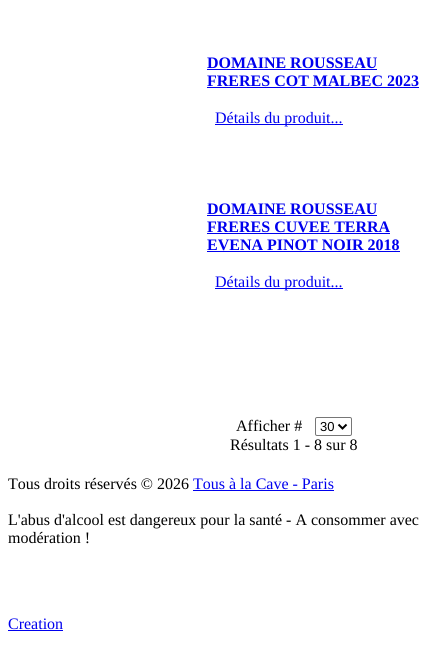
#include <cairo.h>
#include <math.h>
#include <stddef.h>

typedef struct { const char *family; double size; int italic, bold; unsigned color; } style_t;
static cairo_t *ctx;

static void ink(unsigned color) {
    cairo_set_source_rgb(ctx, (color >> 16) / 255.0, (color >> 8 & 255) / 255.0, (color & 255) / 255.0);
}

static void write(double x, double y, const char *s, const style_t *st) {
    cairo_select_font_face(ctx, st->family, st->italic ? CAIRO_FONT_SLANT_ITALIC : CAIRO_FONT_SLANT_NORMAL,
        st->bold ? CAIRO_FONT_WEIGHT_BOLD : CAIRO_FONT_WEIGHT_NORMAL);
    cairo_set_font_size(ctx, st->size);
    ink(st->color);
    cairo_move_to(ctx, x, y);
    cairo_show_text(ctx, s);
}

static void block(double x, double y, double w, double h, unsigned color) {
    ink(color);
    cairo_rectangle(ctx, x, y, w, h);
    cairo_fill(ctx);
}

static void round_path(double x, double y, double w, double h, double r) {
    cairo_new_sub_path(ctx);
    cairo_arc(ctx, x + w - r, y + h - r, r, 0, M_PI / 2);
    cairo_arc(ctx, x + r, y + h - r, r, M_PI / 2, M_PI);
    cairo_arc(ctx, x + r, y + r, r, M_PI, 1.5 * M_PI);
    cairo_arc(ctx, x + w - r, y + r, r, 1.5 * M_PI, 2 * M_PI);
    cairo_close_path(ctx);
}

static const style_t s1 = {"Liberation Serif", 16, 0, 1, 0x0000ee};
static const style_t s2 = {"Liberation Serif", 16, 0, 0, 0x0000ee};
static const style_t s3 = {"Liberation Serif", 16, 0, 0, 0x000000};
static const style_t s4 = {"Liberation Sans", 13, 0, 0, 0x000000};

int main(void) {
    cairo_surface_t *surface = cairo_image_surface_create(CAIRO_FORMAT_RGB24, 448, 649);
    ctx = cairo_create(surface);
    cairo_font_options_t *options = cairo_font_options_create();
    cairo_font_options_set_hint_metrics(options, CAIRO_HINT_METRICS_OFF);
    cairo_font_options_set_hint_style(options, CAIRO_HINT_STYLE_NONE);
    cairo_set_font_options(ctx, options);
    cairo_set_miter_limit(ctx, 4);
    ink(0xffffff);
    cairo_paint(ctx);
    write(207, 68, "DOMAINE ROUSSEAU", &s1);
    block(207, 69, 170, 1, 0x0000ee);
    write(207, 86, "FRERES COT MALBEC 2023", &s1);
    block(207, 87, 212, 1, 0x0000ee);
    block(215, 124, 128, 1, 0x0000ee);
    write(215, 123, "Détails du produit...", &s2);
    write(207, 214, "DOMAINE ROUSSEAU", &s1);
    block(207, 215, 170, 1, 0x0000ee);
    write(207, 232, "FRERES CUVEE TERRA", &s1);
    block(207, 233, 183, 1, 0x0000ee);
    write(207, 250, "EVENA PINOT NOIR 2018", &s1);
    block(207, 251, 193, 1, 0x0000ee);
    block(215, 288, 128, 1, 0x0000ee);
    write(215, 287, "Détails du produit...", &s2);
    write(236, 431, "Afficher #", &s3);
    round_path(315.5, 417.5, 36, 18, 1.5);
    ink(0x767676);
    cairo_set_line_width(ctx, 1);
    cairo_stroke(ctx);
    cairo_new_path(ctx);
    cairo_move_to(ctx, 338.5, 424.5);
    cairo_line_to(ctx, 342.5, 428.5);
    cairo_line_to(ctx, 346.5, 424.5);
    ink(0x000000);
    cairo_set_line_width(ctx, 2);
    cairo_stroke(ctx);
    write(320, 431, "30", &s4);
    write(230, 450, "Résultats 1 - 8 sur 8", &s3);
    write(8, 489, "Tous droits réservés © 2026", &s3);
    write(193, 489, "Tous à la Cave - Paris", &s2);
    block(193, 490, 141, 1, 0x0000ee);
    write(8, 525, "L'abus d'alcool est dangereux pour la santé - A consommer avec", &s3);
    write(8, 543, "modération !", &s3);
    write(8, 629, "Creation", &s2);
    block(8, 630, 55, 1, 0x0000ee);
    cairo_surface_write_to_png(surface, "screenshot.png");
    cairo_font_options_destroy(options);
    cairo_destroy(ctx);
    cairo_surface_destroy(surface);
    return 0;
}
